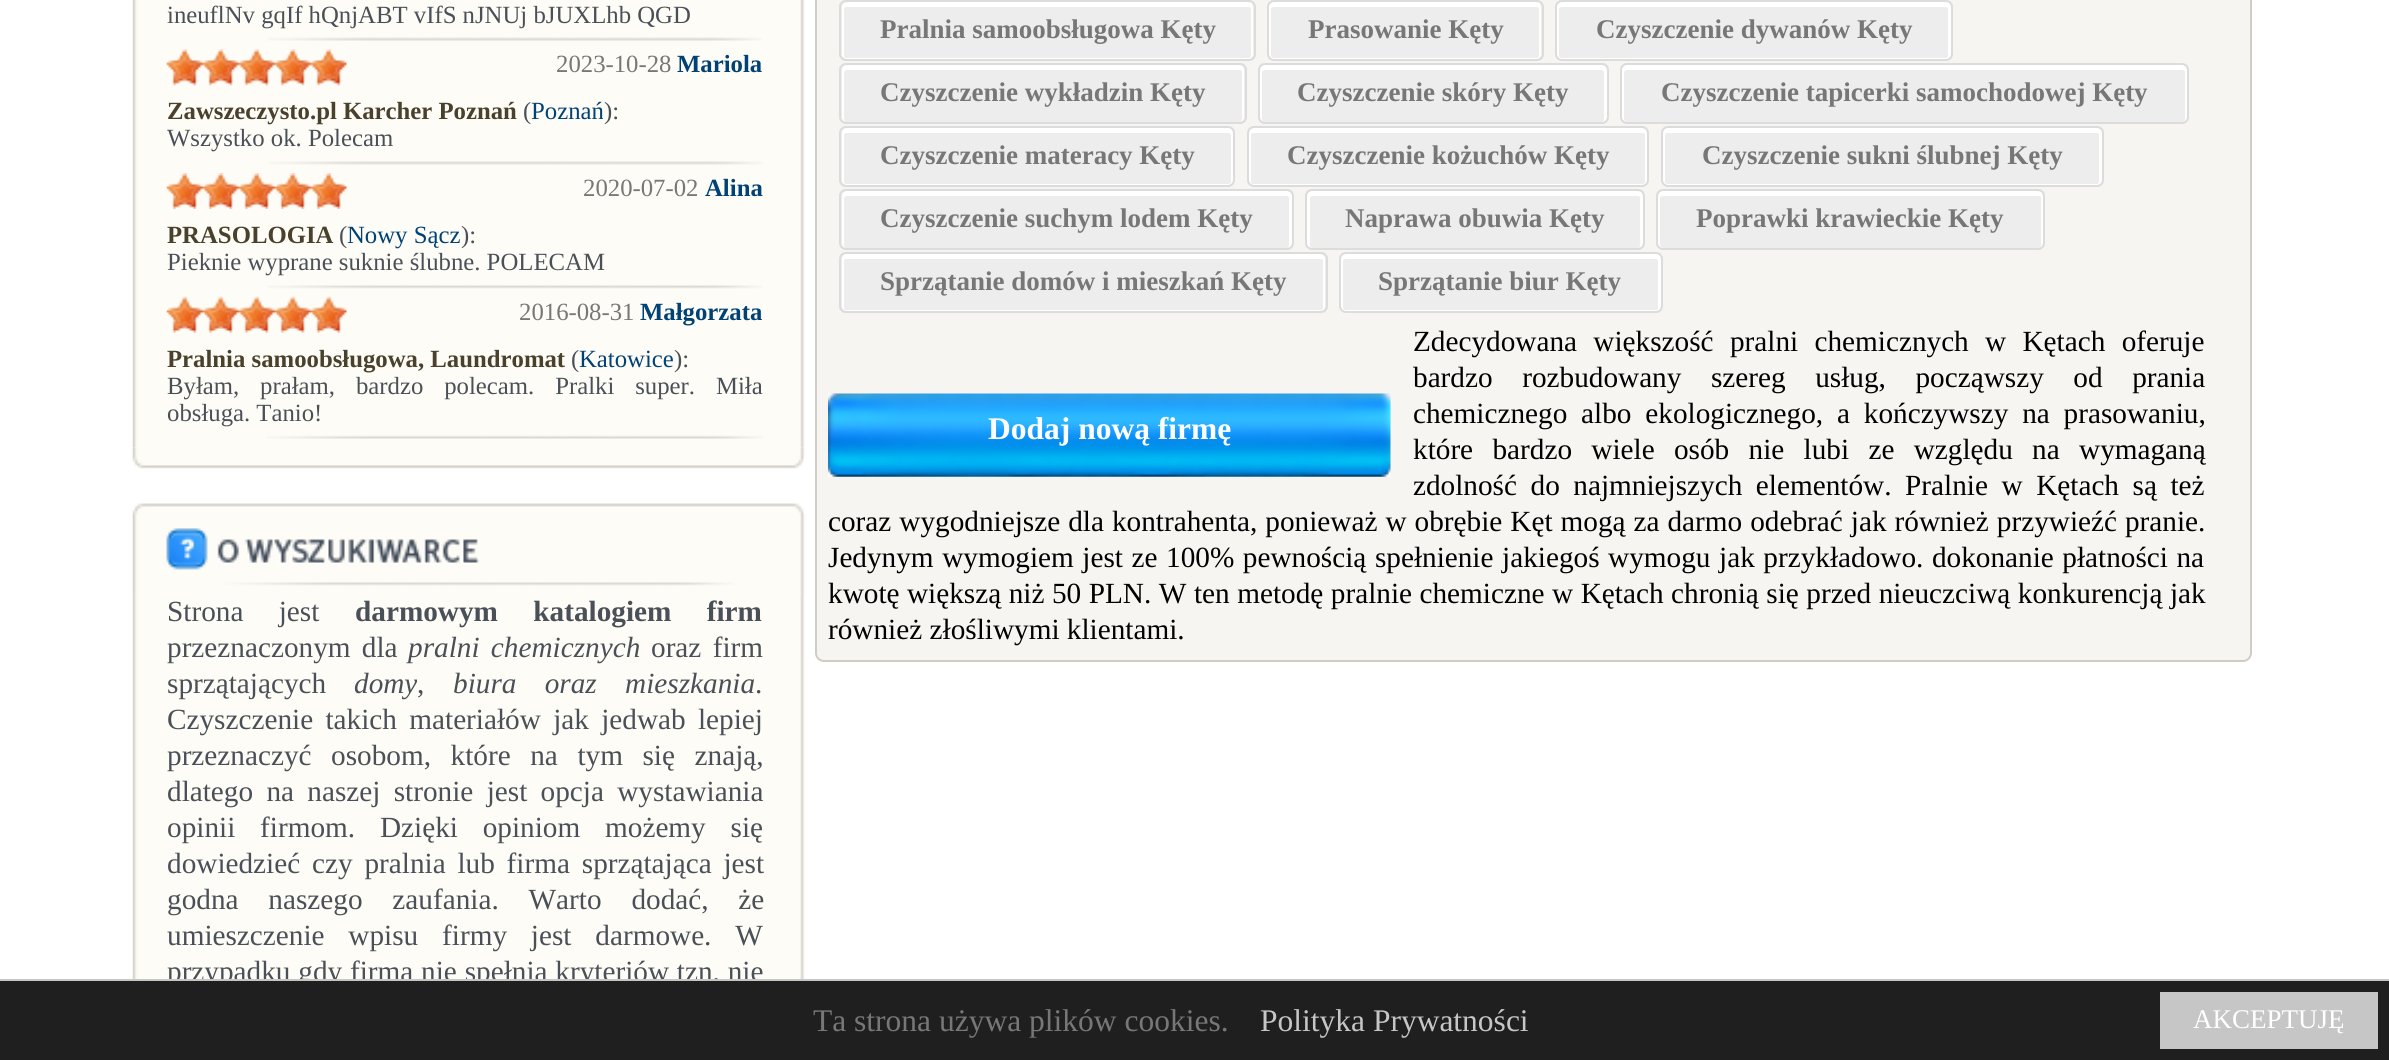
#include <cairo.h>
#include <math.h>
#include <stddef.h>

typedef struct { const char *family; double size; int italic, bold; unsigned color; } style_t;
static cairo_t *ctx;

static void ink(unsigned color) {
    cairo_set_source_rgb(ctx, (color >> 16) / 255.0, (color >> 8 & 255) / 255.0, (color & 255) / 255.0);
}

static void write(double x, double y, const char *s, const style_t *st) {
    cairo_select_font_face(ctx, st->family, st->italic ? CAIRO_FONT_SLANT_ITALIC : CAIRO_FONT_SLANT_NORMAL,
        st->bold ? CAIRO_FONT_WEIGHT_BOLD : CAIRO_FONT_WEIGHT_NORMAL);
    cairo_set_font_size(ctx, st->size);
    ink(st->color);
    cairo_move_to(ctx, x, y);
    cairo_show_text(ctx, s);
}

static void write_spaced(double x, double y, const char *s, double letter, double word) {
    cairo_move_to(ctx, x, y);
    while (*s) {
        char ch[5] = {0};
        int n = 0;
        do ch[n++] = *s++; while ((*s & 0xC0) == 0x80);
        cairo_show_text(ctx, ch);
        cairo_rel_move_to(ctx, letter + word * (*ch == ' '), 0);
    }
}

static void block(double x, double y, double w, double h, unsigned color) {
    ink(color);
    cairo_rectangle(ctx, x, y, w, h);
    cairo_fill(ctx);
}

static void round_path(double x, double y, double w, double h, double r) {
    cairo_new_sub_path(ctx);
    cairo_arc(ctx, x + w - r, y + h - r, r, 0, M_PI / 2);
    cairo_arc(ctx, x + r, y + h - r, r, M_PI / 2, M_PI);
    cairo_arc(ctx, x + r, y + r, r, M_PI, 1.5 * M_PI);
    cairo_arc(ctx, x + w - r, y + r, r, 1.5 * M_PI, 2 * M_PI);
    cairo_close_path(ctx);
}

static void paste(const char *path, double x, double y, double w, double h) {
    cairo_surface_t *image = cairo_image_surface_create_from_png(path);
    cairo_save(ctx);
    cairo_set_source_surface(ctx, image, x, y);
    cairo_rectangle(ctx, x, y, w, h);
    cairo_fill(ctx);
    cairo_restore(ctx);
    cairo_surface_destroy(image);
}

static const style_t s1 = {"Liberation Serif", 24.75, 0, 0, 0x4a5057};
static const style_t s2 = {"Liberation Serif", 24.75, 0, 0, 0x777777};
static const style_t s3 = {"Liberation Serif", 24.75, 0, 1, 0x004276};
static const style_t s4 = {"Liberation Serif", 24.75, 0, 1, 0x4a412d};
static const style_t s5 = {"Liberation Serif", 24.75, 0, 0, 0x004276};
static const style_t s6 = {"Liberation Serif", 29.25, 0, 0, 0x4a5057};
static const style_t s7 = {"Liberation Serif", 29.25, 1, 0, 0x4a5057};
static const style_t s8 = {"Liberation Serif", 27, 0, 1, 0x777777};
static const style_t s9 = {"Liberation Serif", 31.5, 0, 1, 0xffffff};
static const style_t s10 = {"Liberation Serif", 29.25, 0, 0, 0x000000};
static const style_t s11 = {"Liberation Serif", 31.5, 0, 0, 0x777777};
static const style_t s12 = {"Liberation Serif", 31.5, 0, 0, 0xc6c6c6};
static const style_t s13 = {"Liberation Serif", 27, 0, 0, 0xffffff};

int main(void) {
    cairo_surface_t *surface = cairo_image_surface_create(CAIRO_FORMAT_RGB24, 2389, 1060);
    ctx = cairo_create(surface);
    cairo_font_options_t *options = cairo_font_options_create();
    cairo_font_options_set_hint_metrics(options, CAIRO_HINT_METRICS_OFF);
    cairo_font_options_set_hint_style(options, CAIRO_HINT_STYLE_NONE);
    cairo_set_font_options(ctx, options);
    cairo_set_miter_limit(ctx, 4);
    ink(0xffffff);
    cairo_paint(ctx);
    paste("pic1.png", 132, 0, 673, 448);
    write(167, 23, "ineuflNv gqIf hQnjABT vIfS nJNUj bJUXLhb QGD", &s1);
    paste("pic2.png", 268, 37, 495, 4);
    paste("pic3.png", 166, 49, 181, 37);
    write(556, 72, "2023-10-28", &s2);
    write(677, 72, "Mariola", &s3);
    write(167, 119, "Zawszeczysto.pl Karcher Poznań", &s4);
    write(523, 119, "(", &s1);
    write(531, 119, "Poznań", &s5);
    write(604, 119, "):", &s1);
    write(167, 146, "Wszystko ok. Polecam", &s1);
    paste("pic4.png", 269, 161, 493, 4);
    paste("pic5.png", 166, 173, 181, 36);
    write(583, 196, "2020-07-02", &s2);
    write(705, 196, "Alina", &s3);
    write(167, 243, "PRASOLOGIA", &s4);
    write(339, 243, "(", &s1);
    write(347, 243, "Nowy Sącz", &s5);
    write(461, 243, "):", &s1);
    write(167, 270, "Pieknie wyprane suknie ślubne. POLECAM", &s1);
    paste("pic6.png", 267, 285, 496, 4);
    paste("pic7.png", 166, 296, 181, 37);
    write(519, 320, "2016-08-31", &s2);
    write(640, 320, "Małgorzata", &s3);
    write(167, 367, "Pralnia samoobsługowa, Laundromat", &s4);
    write(571, 367, "(", &s1);
    write(579, 367, "Katowice", &s5);
    write(674, 367, "):", &s1);
    write_spaced(167, 394, "Byłam, prałam, bardzo polecam. Pralki super. Miła", 0, 14.75);
    write(167, 421, "obsługa. Tanio!", &s1);
    paste("pic8.png", 267, 435, 496, 4);
    paste("pic9.png", 132, 447, 674, 22);
    paste("pic10.png", 132, 503, 674, 91);
    paste("pic11.png", 132, 593, 673, 386);
    cairo_set_font_size(ctx, 29.25);
    write_spaced(167, 621, "Strona jest", 0, 28);
    cairo_select_font_face(ctx, "Liberation Serif", CAIRO_FONT_SLANT_NORMAL, CAIRO_FONT_WEIGHT_BOLD);
    write_spaced(355, 621, "darmowym katalogiem firm", 0, 28);
    cairo_select_font_face(ctx, "Liberation Serif", CAIRO_FONT_SLANT_NORMAL, CAIRO_FONT_WEIGHT_NORMAL);
    write_spaced(167, 657, "przeznaczonym dla", 0, 4);
    cairo_select_font_face(ctx, "Liberation Serif", CAIRO_FONT_SLANT_ITALIC, CAIRO_FONT_WEIGHT_NORMAL);
    write_spaced(408, 657, "pralni chemicznych", 0, 4);
    cairo_select_font_face(ctx, "Liberation Serif", CAIRO_FONT_SLANT_NORMAL, CAIRO_FONT_WEIGHT_NORMAL);
    write_spaced(651, 657, "oraz firm", 0, 4);
    write(167, 693, "sprzątających", &s6);
    write(354, 693, "domy", &s7);
    write(417, 693, ",", &s6);
    cairo_select_font_face(ctx, "Liberation Serif", CAIRO_FONT_SLANT_ITALIC, CAIRO_FONT_WEIGHT_NORMAL);
    write_spaced(453, 693, "biura oraz mieszkania", 0, 21);
    write(755, 693, ".", &s6);
    write_spaced(167, 729, "Czyszczenie takich materiałów jak jedwab lepiej", 0, 5);
    write_spaced(167, 765, "przeznaczyć osobom, które na tym się znają,", 0, 12.25);
    write_spaced(167, 801, "dlatego na naszej stronie jest opcja wystawiania", 0, 6);
    write_spaced(167, 837, "opinii firmom. Dzięki opiniom możemy się", 0, 17.5);
    write_spaced(167, 873, "dowiedzieć czy pralnia lub firma sprzątająca jest", 0, 4.5);
    write_spaced(167, 909, "godna naszego zaufania. Warto dodać, że", 0, 22.5);
    write_spaced(167, 945, "umieszczenie wpisu firmy jest darmowe. W", 0, 16.5);
    write_spaced(167, 981, "przypadku gdy firma nie spełnia kryteriów tzn. nie", 0, 0.5);
    ink(0xf6f5f2);
    round_path(816, -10, 1435, 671, 8);
    cairo_fill_preserve(ctx);
    ink(0xcfcdc5);
    cairo_stroke(ctx);
    ink(0xededed);
    round_path(839, 0, 417, 61, 7);
    cairo_fill(ctx);
    ink(0xffffff);
    cairo_set_fill_rule(ctx, CAIRO_FILL_RULE_EVEN_ODD);
    cairo_new_path(ctx);
    cairo_move_to(ctx, 847, 2);
    cairo_curve_to(ctx, 844, 2, 842, 4, 842, 7);
    cairo_line_to(ctx, 842, 54);
    cairo_curve_to(ctx, 842, 57, 844, 59, 847, 59);
    cairo_line_to(ctx, 1248, 59);
    cairo_curve_to(ctx, 1251, 59, 1253, 57, 1253, 54);
    cairo_line_to(ctx, 1253, 7);
    cairo_curve_to(ctx, 1253, 4, 1251, 2, 1248, 2);
    cairo_close_path(ctx);
    cairo_move_to(ctx, 846, 7);
    cairo_curve_to(ctx, 845, 7, 844, 8, 844, 9);
    cairo_line_to(ctx, 844, 56);
    cairo_curve_to(ctx, 844, 57, 845, 58, 846, 58);
    cairo_line_to(ctx, 1249, 58);
    cairo_curve_to(ctx, 1250, 58, 1251, 57, 1251, 56);
    cairo_line_to(ctx, 1251, 9);
    cairo_curve_to(ctx, 1251, 8, 1250, 7, 1249, 7);
    cairo_close_path(ctx);
    cairo_fill(ctx);
    round_path(840, 1, 415, 59, 6);
    ink(0xdcdcdc);
    cairo_stroke(ctx);
    write(880, 38, "Pralnia samoobsługowa Kęty", &s8);
    ink(0xededed);
    round_path(1267, 0, 277, 61, 7);
    cairo_fill(ctx);
    ink(0xffffff);
    cairo_new_path(ctx);
    cairo_move_to(ctx, 1274, 2);
    cairo_curve_to(ctx, 1271, 2, 1269, 4, 1269, 7);
    cairo_line_to(ctx, 1269, 54);
    cairo_curve_to(ctx, 1269, 57, 1271, 59, 1274, 59);
    cairo_line_to(ctx, 1536, 59);
    cairo_curve_to(ctx, 1539, 59, 1541, 57, 1541, 54);
    cairo_line_to(ctx, 1541, 7);
    cairo_curve_to(ctx, 1541, 4, 1539, 2, 1536, 2);
    cairo_close_path(ctx);
    cairo_move_to(ctx, 1274, 7);
    cairo_curve_to(ctx, 1272, 7, 1271, 8, 1271, 9);
    cairo_line_to(ctx, 1271, 56);
    cairo_curve_to(ctx, 1271, 57, 1272, 58, 1274, 58);
    cairo_line_to(ctx, 1537, 58);
    cairo_curve_to(ctx, 1538, 58, 1539, 57, 1539, 56);
    cairo_line_to(ctx, 1539, 9);
    cairo_curve_to(ctx, 1539, 8, 1538, 7, 1537, 7);
    cairo_close_path(ctx);
    cairo_fill(ctx);
    round_path(1268, 1, 275, 59, 6);
    ink(0xdcdcdc);
    cairo_stroke(ctx);
    write(1308, 38, "Prasowanie Kęty", &s8);
    ink(0xededed);
    round_path(1555, 0, 398, 61, 7);
    cairo_fill(ctx);
    ink(0xffffff);
    cairo_new_path(ctx);
    cairo_move_to(ctx, 1562, 2);
    cairo_curve_to(ctx, 1559, 2, 1557, 4, 1557, 7);
    cairo_line_to(ctx, 1557, 54);
    cairo_curve_to(ctx, 1557, 57, 1559, 59, 1562, 59);
    cairo_line_to(ctx, 1946, 59);
    cairo_curve_to(ctx, 1949, 59, 1951, 57, 1951, 54);
    cairo_line_to(ctx, 1951, 7);
    cairo_curve_to(ctx, 1951, 4, 1949, 2, 1946, 2);
    cairo_close_path(ctx);
    cairo_move_to(ctx, 1562, 7);
    cairo_curve_to(ctx, 1560, 7, 1559, 8, 1559, 9);
    cairo_line_to(ctx, 1559, 56);
    cairo_curve_to(ctx, 1559, 57, 1560, 58, 1562, 58);
    cairo_line_to(ctx, 1946, 58);
    cairo_curve_to(ctx, 1947, 58, 1948, 57, 1948, 56);
    cairo_line_to(ctx, 1948, 9);
    cairo_curve_to(ctx, 1948, 8, 1947, 7, 1946, 7);
    cairo_close_path(ctx);
    cairo_fill(ctx);
    round_path(1556, 1, 396, 59, 6);
    ink(0xdcdcdc);
    cairo_stroke(ctx);
    write(1596, 38, "Czyszczenie dywanów Kęty", &s8);
    ink(0xededed);
    round_path(839, 63, 408, 61, 7);
    cairo_fill(ctx);
    ink(0xffffff);
    cairo_set_fill_rule(ctx, CAIRO_FILL_RULE_WINDING);
    cairo_new_path(ctx);
    cairo_move_to(ctx, 846, 70);
    cairo_line_to(ctx, 1241, 70);
    cairo_line_to(ctx, 1242, 72);
    cairo_line_to(ctx, 1242, 119);
    cairo_line_to(ctx, 1241, 122);
    cairo_curve_to(ctx, 1243, 121, 1244, 119, 1244, 117);
    cairo_line_to(ctx, 1244, 70);
    cairo_curve_to(ctx, 1244, 67, 1242, 65, 1239, 65);
    cairo_line_to(ctx, 847, 65);
    cairo_curve_to(ctx, 844, 65, 842, 67, 842, 70);
    cairo_line_to(ctx, 842, 117);
    cairo_curve_to(ctx, 842, 119, 843, 121, 845, 122);
    cairo_line_to(ctx, 844, 119);
    cairo_line_to(ctx, 844, 72);
    cairo_line_to(ctx, 845, 71);
    cairo_close_path(ctx);
    cairo_fill(ctx);
    round_path(840, 64, 406, 59, 6);
    ink(0xdcdcdc);
    cairo_stroke(ctx);
    write(880, 101, "Czyszczenie wykładzin Kęty", &s8);
    ink(0xededed);
    round_path(1258, 63, 351, 61, 7);
    cairo_fill(ctx);
    ink(0xffffff);
    cairo_new_path(ctx);
    cairo_move_to(ctx, 1264, 70);
    cairo_line_to(ctx, 1602, 70);
    cairo_line_to(ctx, 1604, 71);
    cairo_line_to(ctx, 1604, 111);
    cairo_curve_to(ctx, 1604, 116, 1605, 122, 1602, 122);
    cairo_curve_to(ctx, 1605, 122, 1607, 120, 1607, 117);
    cairo_line_to(ctx, 1607, 70);
    cairo_curve_to(ctx, 1607, 67, 1605, 65, 1602, 65);
    cairo_line_to(ctx, 1265, 65);
    cairo_curve_to(ctx, 1262, 65, 1260, 67, 1260, 70);
    cairo_line_to(ctx, 1260, 117);
    cairo_curve_to(ctx, 1260, 119, 1261, 121, 1263, 122);
    cairo_line_to(ctx, 1262, 119);
    cairo_line_to(ctx, 1262, 72);
    cairo_line_to(ctx, 1263, 71);
    cairo_close_path(ctx);
    cairo_fill(ctx);
    round_path(1259, 64, 349, 59, 6);
    ink(0xdcdcdc);
    cairo_stroke(ctx);
    write(1297, 101, "Czyszczenie skóry Kęty", &s8);
    ink(0xededed);
    round_path(1620, 63, 569, 61, 7);
    cairo_fill(ctx);
    ink(0xffffff);
    cairo_new_path(ctx);
    cairo_move_to(ctx, 1627, 70);
    cairo_line_to(ctx, 2182, 70);
    cairo_curve_to(ctx, 2184, 70, 2185, 71, 2185, 72);
    cairo_line_to(ctx, 2185, 119);
    cairo_curve_to(ctx, 2185, 120, 2184, 122, 2182, 122);
    cairo_curve_to(ctx, 2185, 122, 2187, 120, 2187, 117);
    cairo_line_to(ctx, 2187, 70);
    cairo_curve_to(ctx, 2187, 67, 2185, 65, 2182, 65);
    cairo_line_to(ctx, 1627, 65);
    cairo_curve_to(ctx, 1624, 65, 1622, 67, 1622, 70);
    cairo_line_to(ctx, 1622, 117);
    cairo_curve_to(ctx, 1622, 120, 1624, 122, 1627, 122);
    cairo_curve_to(ctx, 1626, 122, 1624, 120, 1624, 119);
    cairo_line_to(ctx, 1624, 72);
    cairo_curve_to(ctx, 1624, 71, 1626, 70, 1627, 70);
    cairo_close_path(ctx);
    cairo_fill(ctx);
    round_path(1621, 64, 567, 59, 6);
    ink(0xdcdcdc);
    cairo_stroke(ctx);
    write(1661, 101, "Czyszczenie tapicerki samochodowej Kęty", &s8);
    ink(0xededed);
    round_path(839, 126, 396, 61, 7);
    cairo_fill(ctx);
    ink(0xffffff);
    cairo_set_fill_rule(ctx, CAIRO_FILL_RULE_EVEN_ODD);
    cairo_new_path(ctx);
    cairo_move_to(ctx, 847, 128);
    cairo_curve_to(ctx, 844, 128, 842, 130, 842, 133);
    cairo_line_to(ctx, 842, 180);
    cairo_curve_to(ctx, 842, 183, 844, 185, 847, 185);
    cairo_line_to(ctx, 1228, 185);
    cairo_curve_to(ctx, 1231, 185, 1233, 183, 1233, 180);
    cairo_line_to(ctx, 1233, 133);
    cairo_curve_to(ctx, 1233, 130, 1231, 128, 1228, 128);
    cairo_close_path(ctx);
    cairo_move_to(ctx, 846, 133);
    cairo_curve_to(ctx, 845, 133, 844, 134, 844, 135);
    cairo_line_to(ctx, 844, 182);
    cairo_curve_to(ctx, 844, 183, 845, 184, 846, 184);
    cairo_line_to(ctx, 1228, 184);
    cairo_curve_to(ctx, 1230, 184, 1231, 183, 1231, 182);
    cairo_line_to(ctx, 1231, 135);
    cairo_curve_to(ctx, 1231, 134, 1230, 133, 1228, 133);
    cairo_close_path(ctx);
    cairo_fill(ctx);
    round_path(840, 127, 394, 59, 6);
    ink(0xdcdcdc);
    cairo_stroke(ctx);
    write(880, 164, "Czyszczenie materacy Kęty", &s8);
    ink(0xededed);
    round_path(1247, 126, 402, 61, 7);
    cairo_fill(ctx);
    ink(0xffffff);
    cairo_new_path(ctx);
    cairo_move_to(ctx, 1254, 128);
    cairo_curve_to(ctx, 1251, 128, 1249, 130, 1249, 133);
    cairo_line_to(ctx, 1249, 180);
    cairo_curve_to(ctx, 1249, 183, 1251, 185, 1254, 185);
    cairo_line_to(ctx, 1642, 185);
    cairo_curve_to(ctx, 1645, 185, 1647, 183, 1647, 180);
    cairo_line_to(ctx, 1647, 133);
    cairo_curve_to(ctx, 1647, 130, 1645, 128, 1642, 128);
    cairo_close_path(ctx);
    cairo_move_to(ctx, 1253, 133);
    cairo_curve_to(ctx, 1252, 133, 1251, 134, 1251, 135);
    cairo_line_to(ctx, 1251, 182);
    cairo_curve_to(ctx, 1251, 183, 1252, 184, 1253, 184);
    cairo_line_to(ctx, 1642, 184);
    cairo_curve_to(ctx, 1644, 184, 1645, 183, 1645, 182);
    cairo_line_to(ctx, 1645, 135);
    cairo_curve_to(ctx, 1645, 134, 1644, 133, 1642, 133);
    cairo_close_path(ctx);
    cairo_fill(ctx);
    round_path(1248, 127, 400, 59, 6);
    ink(0xdcdcdc);
    cairo_stroke(ctx);
    write(1287, 164, "Czyszczenie kożuchów Kęty", &s8);
    ink(0xededed);
    round_path(1661, 126, 443, 61, 7);
    cairo_fill(ctx);
    ink(0xffffff);
    cairo_new_path(ctx);
    cairo_move_to(ctx, 1668, 128);
    cairo_curve_to(ctx, 1665, 128, 1663, 130, 1663, 133);
    cairo_line_to(ctx, 1663, 180);
    cairo_curve_to(ctx, 1663, 183, 1665, 185, 1668, 185);
    cairo_line_to(ctx, 2097, 185);
    cairo_curve_to(ctx, 2100, 185, 2102, 183, 2102, 180);
    cairo_line_to(ctx, 2102, 133);
    cairo_curve_to(ctx, 2102, 130, 2100, 128, 2097, 128);
    cairo_close_path(ctx);
    cairo_move_to(ctx, 1667, 133);
    cairo_curve_to(ctx, 1666, 133, 1665, 134, 1665, 135);
    cairo_line_to(ctx, 1665, 182);
    cairo_curve_to(ctx, 1665, 183, 1666, 184, 1667, 184);
    cairo_line_to(ctx, 2097, 184);
    cairo_curve_to(ctx, 2098, 184, 2099, 183, 2099, 182);
    cairo_line_to(ctx, 2099, 135);
    cairo_curve_to(ctx, 2099, 134, 2098, 133, 2097, 133);
    cairo_close_path(ctx);
    cairo_fill(ctx);
    round_path(1662, 127, 441, 59, 6);
    ink(0xdcdcdc);
    cairo_stroke(ctx);
    write(1702, 164, "Czyszczenie sukni ślubnej Kęty", &s8);
    ink(0xededed);
    round_path(839, 189, 455, 61, 7);
    cairo_fill(ctx);
    ink(0xffffff);
    cairo_set_fill_rule(ctx, CAIRO_FILL_RULE_WINDING);
    cairo_new_path(ctx);
    cairo_move_to(ctx, 846, 196);
    cairo_line_to(ctx, 1287, 196);
    cairo_curve_to(ctx, 1288, 196, 1289, 197, 1289, 198);
    cairo_line_to(ctx, 1289, 245);
    cairo_curve_to(ctx, 1289, 246, 1288, 248, 1287, 248);
    cairo_curve_to(ctx, 1290, 248, 1292, 246, 1292, 243);
    cairo_line_to(ctx, 1292, 196);
    cairo_curve_to(ctx, 1292, 193, 1290, 191, 1287, 191);
    cairo_line_to(ctx, 847, 191);
    cairo_curve_to(ctx, 844, 191, 842, 193, 842, 196);
    cairo_line_to(ctx, 842, 243);
    cairo_curve_to(ctx, 842, 245, 843, 247, 845, 248);
    cairo_line_to(ctx, 844, 245);
    cairo_line_to(ctx, 844, 198);
    cairo_line_to(ctx, 845, 197);
    cairo_close_path(ctx);
    cairo_fill(ctx);
    round_path(840, 190, 453, 59, 6);
    ink(0xdcdcdc);
    cairo_stroke(ctx);
    write(880, 227, "Czyszczenie suchym lodem Kęty", &s8);
    ink(0xededed);
    round_path(1305, 189, 340, 61, 7);
    cairo_fill(ctx);
    ink(0xffffff);
    cairo_new_path(ctx);
    cairo_move_to(ctx, 1312, 196);
    cairo_line_to(ctx, 1638, 196);
    cairo_line_to(ctx, 1640, 197);
    cairo_line_to(ctx, 1640, 237);
    cairo_curve_to(ctx, 1640, 242, 1641, 248, 1638, 248);
    cairo_curve_to(ctx, 1641, 248, 1643, 246, 1643, 243);
    cairo_line_to(ctx, 1643, 196);
    cairo_curve_to(ctx, 1643, 193, 1641, 191, 1638, 191);
    cairo_line_to(ctx, 1312, 191);
    cairo_curve_to(ctx, 1309, 191, 1307, 193, 1307, 196);
    cairo_line_to(ctx, 1307, 243);
    cairo_curve_to(ctx, 1307, 246, 1309, 248, 1312, 248);
    cairo_curve_to(ctx, 1309, 248, 1310, 242, 1310, 237);
    cairo_line_to(ctx, 1310, 197);
    cairo_close_path(ctx);
    cairo_fill(ctx);
    round_path(1306, 190, 338, 59, 6);
    ink(0xdcdcdc);
    cairo_stroke(ctx);
    write(1345, 227, "Naprawa obuwia Kęty", &s8);
    ink(0xededed);
    round_path(1656, 189, 389, 61, 7);
    cairo_fill(ctx);
    ink(0xffffff);
    cairo_new_path(ctx);
    cairo_move_to(ctx, 1663, 196);
    cairo_line_to(ctx, 2038, 196);
    cairo_curve_to(ctx, 2040, 196, 2041, 197, 2041, 198);
    cairo_line_to(ctx, 2041, 245);
    cairo_curve_to(ctx, 2041, 246, 2040, 248, 2038, 248);
    cairo_curve_to(ctx, 2041, 248, 2043, 246, 2043, 243);
    cairo_line_to(ctx, 2043, 196);
    cairo_curve_to(ctx, 2043, 193, 2041, 191, 2038, 191);
    cairo_line_to(ctx, 1663, 191);
    cairo_curve_to(ctx, 1660, 191, 1658, 193, 1658, 196);
    cairo_line_to(ctx, 1658, 243);
    cairo_curve_to(ctx, 1658, 246, 1660, 248, 1663, 248);
    cairo_curve_to(ctx, 1662, 248, 1660, 246, 1660, 245);
    cairo_line_to(ctx, 1660, 198);
    cairo_curve_to(ctx, 1660, 197, 1662, 196, 1663, 196);
    cairo_close_path(ctx);
    cairo_fill(ctx);
    round_path(1657, 190, 387, 59, 6);
    ink(0xdcdcdc);
    cairo_stroke(ctx);
    write(1696, 227, "Poprawki krawieckie Kęty", &s8);
    ink(0xededed);
    round_path(839, 252, 489, 61, 7);
    cairo_fill(ctx);
    ink(0xffffff);
    cairo_set_fill_rule(ctx, CAIRO_FILL_RULE_EVEN_ODD);
    cairo_new_path(ctx);
    cairo_move_to(ctx, 847, 254);
    cairo_curve_to(ctx, 844, 254, 842, 256, 842, 259);
    cairo_line_to(ctx, 842, 306);
    cairo_curve_to(ctx, 842, 309, 844, 311, 847, 311);
    cairo_line_to(ctx, 1320, 311);
    cairo_curve_to(ctx, 1323, 311, 1325, 309, 1325, 306);
    cairo_line_to(ctx, 1325, 259);
    cairo_curve_to(ctx, 1325, 256, 1323, 254, 1320, 254);
    cairo_close_path(ctx);
    cairo_move_to(ctx, 846, 259);
    cairo_curve_to(ctx, 845, 259, 844, 260, 844, 261);
    cairo_line_to(ctx, 844, 308);
    cairo_curve_to(ctx, 844, 309, 845, 310, 846, 310);
    cairo_line_to(ctx, 1321, 310);
    cairo_curve_to(ctx, 1322, 310, 1323, 309, 1323, 308);
    cairo_line_to(ctx, 1323, 261);
    cairo_curve_to(ctx, 1323, 260, 1322, 259, 1321, 259);
    cairo_close_path(ctx);
    cairo_fill(ctx);
    round_path(840, 253, 487, 59, 6);
    ink(0xdcdcdc);
    cairo_stroke(ctx);
    write(880, 290, "Sprzątanie domów i mieszkań Kęty", &s8);
    ink(0xededed);
    round_path(1339, 252, 324, 61, 7);
    cairo_fill(ctx);
    ink(0xffffff);
    cairo_new_path(ctx);
    cairo_move_to(ctx, 1346, 254);
    cairo_curve_to(ctx, 1343, 254, 1341, 256, 1341, 259);
    cairo_line_to(ctx, 1341, 306);
    cairo_curve_to(ctx, 1341, 309, 1343, 311, 1346, 311);
    cairo_line_to(ctx, 1656, 311);
    cairo_curve_to(ctx, 1659, 311, 1661, 309, 1661, 306);
    cairo_line_to(ctx, 1661, 259);
    cairo_curve_to(ctx, 1661, 256, 1659, 254, 1656, 254);
    cairo_close_path(ctx);
    cairo_move_to(ctx, 1346, 259);
    cairo_curve_to(ctx, 1344, 259, 1343, 260, 1343, 261);
    cairo_line_to(ctx, 1343, 308);
    cairo_curve_to(ctx, 1343, 309, 1344, 310, 1346, 310);
    cairo_line_to(ctx, 1656, 310);
    cairo_curve_to(ctx, 1657, 310, 1658, 309, 1658, 308);
    cairo_line_to(ctx, 1658, 261);
    cairo_curve_to(ctx, 1658, 260, 1657, 259, 1656, 259);
    cairo_close_path(ctx);
    cairo_fill(ctx);
    round_path(1340, 253, 322, 59, 6);
    ink(0xdcdcdc);
    cairo_stroke(ctx);
    write(1378, 290, "Sprzątanie biur Kęty", &s8);
    cairo_select_font_face(ctx, "Liberation Serif", CAIRO_FONT_SLANT_NORMAL, CAIRO_FONT_WEIGHT_NORMAL);
    cairo_set_font_size(ctx, 29.25);
    ink(0x000000);
    write_spaced(1413, 351, "Zdecydowana większość pralni chemicznych w Kętach oferuje", 0, 9);
    write_spaced(1413, 387, "bardzo rozbudowany szereg usług, począwszy od prania", 0, 22.25);
    paste("pic12.png", 828, 393, 563, 84);
    write(988, 439, "Dodaj nową firmę", &s9);
    cairo_select_font_face(ctx, "Liberation Serif", CAIRO_FONT_SLANT_NORMAL, CAIRO_FONT_WEIGHT_NORMAL);
    cairo_set_font_size(ctx, 29.25);
    ink(0x000000);
    write_spaced(1413, 423, "chemicznego albo ekologicznego, a kończywszy na prasowaniu,", 0, 6.5);
    write_spaced(1413, 459, "które bardzo wiele osób nie lubi ze względu na wymaganą", 0, 12);
    write_spaced(1413, 495, "zdolność do najmniejszych elementów. Pralnie w Kętach są też", 0, 6.25);
    write_spaced(828, 531, "coraz wygodniejsze dla kontrahenta, ponieważ w obrębie Kęt mogą za darmo odebrać jak również przywieźć pranie.", 0, 0.7);
    write_spaced(828, 567, "Jedynym wymogiem jest ze 100% pewnością spełnienie jakiegoś wymogu jak przykładowo. dokonanie płatności na", 0, 1.25);
    write_spaced(828, 603, "kwotę większą niż 50 PLN. W ten metodę pralnie chemiczne w Kętach chronią się przed nieuczciwą konkurencją jak", 0, 0.2);
    write(828, 639, "również złośliwymi klientami.", &s10);
    block(0, 981, 2389, 79, 0x1f1f1f);
    block(0, 979, 2389, 2, 0xc6c6c6);
    write(813, 1031, "Ta strona używa plików cookies.", &s11);
    write(1260, 1031, "Polityka Prywatności", &s12);
    block(2160, 992, 218, 57, 0xc6c6c6);
    write(2193, 1028, "AKCEPTUJĘ", &s13);
    cairo_surface_write_to_png(surface, "screenshot.png");
    cairo_font_options_destroy(options);
    cairo_destroy(ctx);
    cairo_surface_destroy(surface);
    return 0;
}
